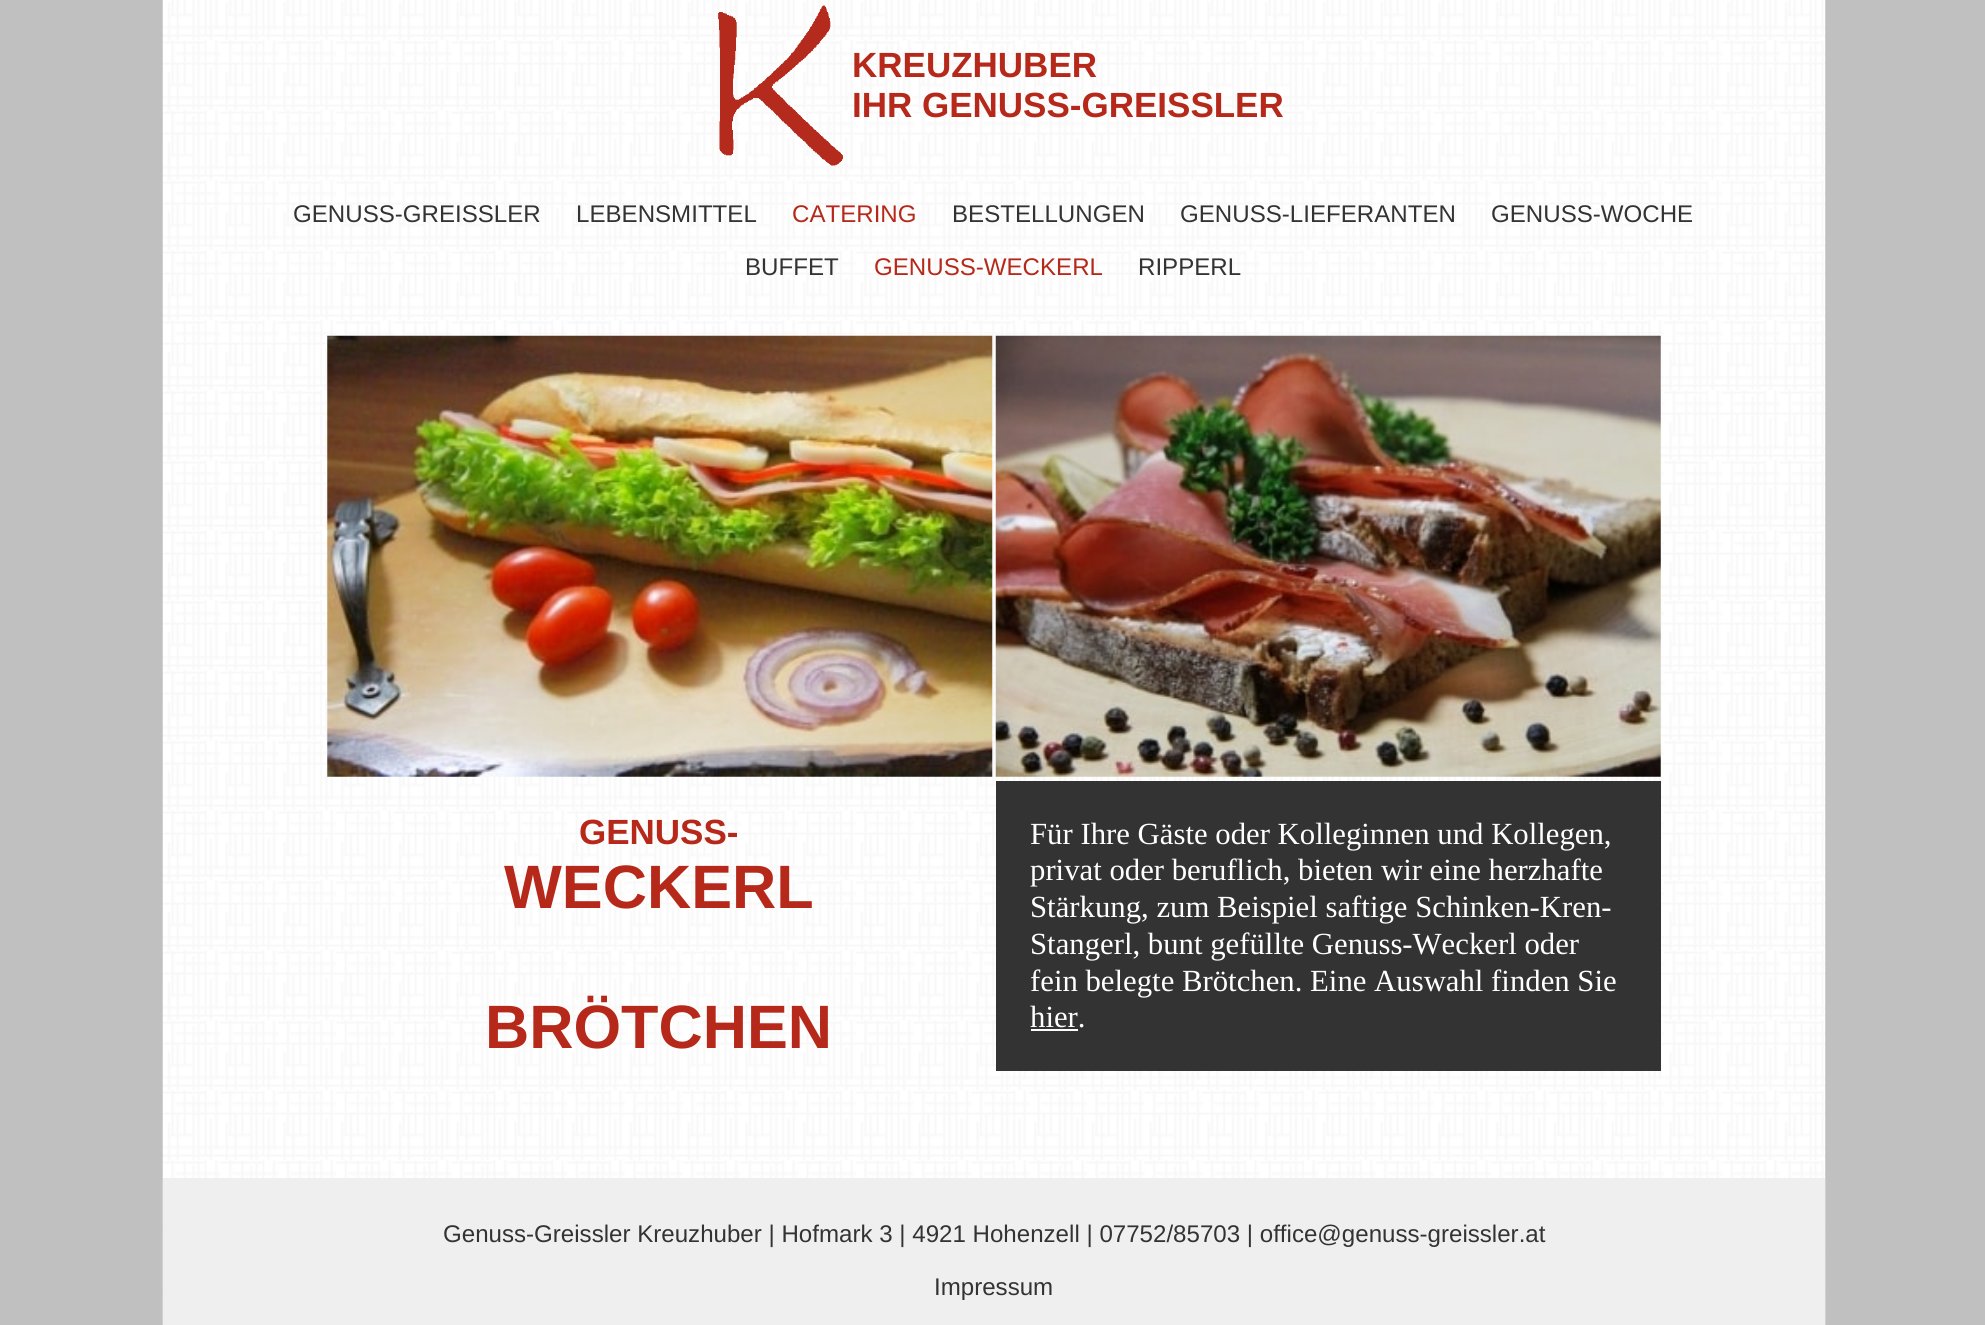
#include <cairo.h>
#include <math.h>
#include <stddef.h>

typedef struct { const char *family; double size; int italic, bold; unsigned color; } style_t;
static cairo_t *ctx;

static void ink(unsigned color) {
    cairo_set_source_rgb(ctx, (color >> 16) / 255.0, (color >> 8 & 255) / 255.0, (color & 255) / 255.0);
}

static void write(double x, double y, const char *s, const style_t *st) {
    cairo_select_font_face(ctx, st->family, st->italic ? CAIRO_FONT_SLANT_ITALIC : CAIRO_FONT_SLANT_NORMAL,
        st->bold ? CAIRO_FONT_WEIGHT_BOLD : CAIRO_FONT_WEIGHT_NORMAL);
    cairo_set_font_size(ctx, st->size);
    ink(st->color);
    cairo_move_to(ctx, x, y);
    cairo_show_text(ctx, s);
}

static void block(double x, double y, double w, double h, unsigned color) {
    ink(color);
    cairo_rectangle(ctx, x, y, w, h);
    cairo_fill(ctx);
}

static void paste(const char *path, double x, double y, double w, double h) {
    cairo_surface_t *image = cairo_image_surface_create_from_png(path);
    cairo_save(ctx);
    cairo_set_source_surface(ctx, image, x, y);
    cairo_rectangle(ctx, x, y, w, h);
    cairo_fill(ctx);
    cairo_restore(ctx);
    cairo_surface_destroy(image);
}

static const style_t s1 = {"Liberation Sans", 35, 0, 1, 0xb6291a};
static const style_t s2 = {"Liberation Sans", 24.1, 0, 0, 0x333333};
static const style_t s3 = {"Liberation Sans", 24.1, 0, 0, 0xb6291a};
static const style_t s4 = {"Liberation Sans", 61.25, 0, 1, 0xb6291a};
static const style_t s5 = {"Liberation Serif", 30.75, 0, 0, 0xffffff};

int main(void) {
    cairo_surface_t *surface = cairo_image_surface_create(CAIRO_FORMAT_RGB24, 1985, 1325);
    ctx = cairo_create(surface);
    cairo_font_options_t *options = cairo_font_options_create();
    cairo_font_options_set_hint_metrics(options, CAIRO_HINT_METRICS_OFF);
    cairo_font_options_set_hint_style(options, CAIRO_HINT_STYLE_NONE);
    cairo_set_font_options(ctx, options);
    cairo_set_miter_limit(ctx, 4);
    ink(0xc0c0c0);
    cairo_paint(ctx);
    paste("pic1.png", 162, 0, 1664, 1325);
    paste("pic2.png", 718, 5, 125, 161);
    write(852, 77, "KREUZHUBER", &s1);
    write(852, 117, "IHR GENUSS-GREISSLER", &s1);
    write(293, 222, "GENUSS-GREISSLER", &s2);
    write(576, 222, "LEBENSMITTEL", &s2);
    write(792, 222, "CATERING", &s3);
    write(952, 222, "BESTELLUNGEN", &s2);
    write(1180, 222, "GENUSS-LIEFERANTEN", &s2);
    write(1491, 222, "GENUSS-WOCHE", &s2);
    write(745, 275, "BUFFET", &s2);
    write(874, 275, "GENUSS-WECKERL", &s3);
    write(1138, 275, "RIPPERL", &s2);
    paste("pic3.png", 327, 335, 666, 442);
    paste("pic4.png", 995, 335, 666, 442);
    write(579, 844, "GENUSS-", &s1);
    write(504, 908, "WECKERL", &s4);
    write(485, 1048, "BRÖTCHEN", &s4);
    block(996, 781, 665, 290, 0x333333);
    write(1030, 844, "Für Ihre Gäste oder Kolleginnen und Kollegen,", &s5);
    write(1030, 880, "privat oder beruflich, bieten wir eine herzhafte", &s5);
    write(1030, 917, "Stärkung, zum Beispiel saftige Schinken-Kren-", &s5);
    write(1030, 954, "Stangerl, bunt gefüllte Genuss-Weckerl oder", &s5);
    write(1030, 991, "fein belegte Brötchen. Eine Auswahl finden Sie", &s5);
    write(1030, 1027, "hier.", &s5);
    block(1031, 1029, 47, 2, 0xffffff);
    block(163, 1178, 1662, 147, 0xefefef);
    write(443, 1242, "Genuss-Greissler Kreuzhuber | Hofmark 3 | 4921 Hohenzell | 07752/85703 | office@genuss-greissler.at", &s2);
    write(934, 1295, "Impressum", &s2);
    cairo_surface_write_to_png(surface, "screenshot.png");
    cairo_font_options_destroy(options);
    cairo_destroy(ctx);
    cairo_surface_destroy(surface);
    return 0;
}
